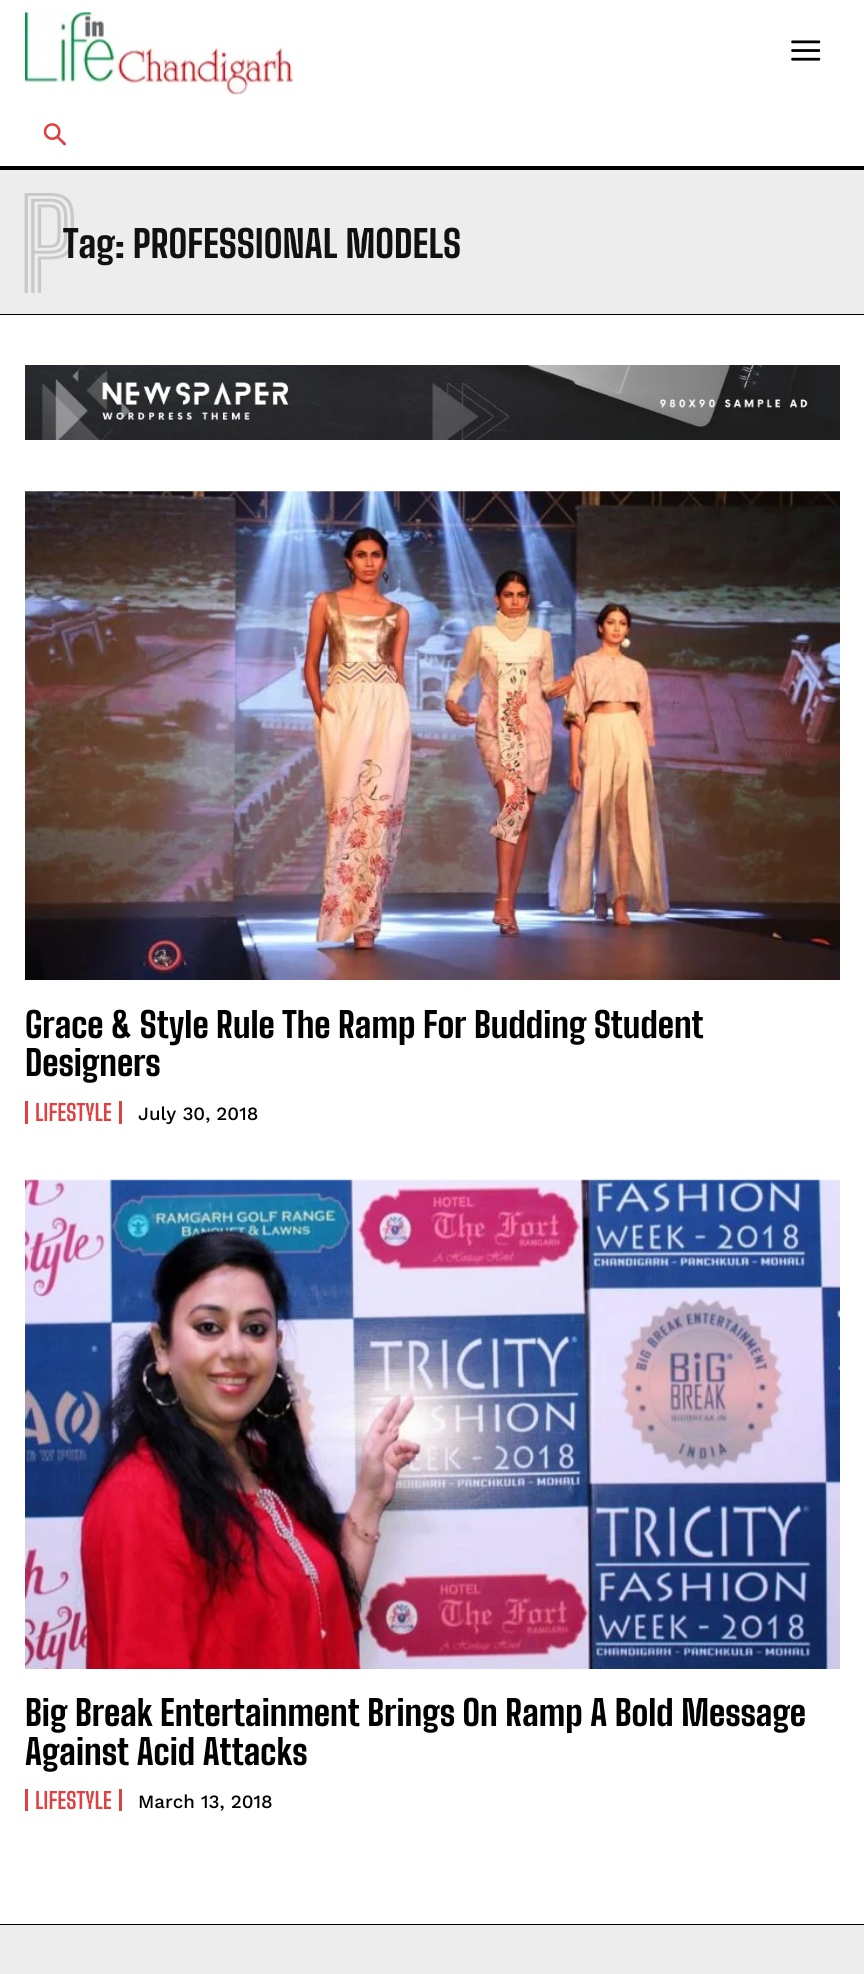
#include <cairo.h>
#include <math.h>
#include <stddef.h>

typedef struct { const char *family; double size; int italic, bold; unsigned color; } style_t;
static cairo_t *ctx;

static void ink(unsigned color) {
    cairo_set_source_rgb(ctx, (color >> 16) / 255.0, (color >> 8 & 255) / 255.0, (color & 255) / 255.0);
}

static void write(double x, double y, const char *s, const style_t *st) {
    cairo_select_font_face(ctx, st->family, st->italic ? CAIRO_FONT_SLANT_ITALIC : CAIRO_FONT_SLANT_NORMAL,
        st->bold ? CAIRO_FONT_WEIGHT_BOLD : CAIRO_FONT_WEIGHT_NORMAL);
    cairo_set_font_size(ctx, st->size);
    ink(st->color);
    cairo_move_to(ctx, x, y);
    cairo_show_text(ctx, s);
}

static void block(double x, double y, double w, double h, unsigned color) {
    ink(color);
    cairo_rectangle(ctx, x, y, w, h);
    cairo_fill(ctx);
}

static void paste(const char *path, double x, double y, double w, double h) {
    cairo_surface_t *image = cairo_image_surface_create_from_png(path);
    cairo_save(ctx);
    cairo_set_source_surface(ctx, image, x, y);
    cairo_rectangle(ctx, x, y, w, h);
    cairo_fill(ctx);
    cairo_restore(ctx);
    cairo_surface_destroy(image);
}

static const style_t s1 = {"Big Shoulders Inline Text ExtraBold", 125, 0, 0, 0xc9c9c9};
static const style_t s2 = {"Big Shoulders Text ExtraBold", 37.5, 0, 0, 0x111111};
static const style_t s3 = {"Big Shoulders Text ExtraBold", 35, 0, 0, 0x000000};
static const style_t s4 = {"Big Shoulders Text", 22.5, 0, 1, 0xe04040};
static const style_t s5 = {"Work Sans Medium", 18.75, 0, 0, 0x000000};

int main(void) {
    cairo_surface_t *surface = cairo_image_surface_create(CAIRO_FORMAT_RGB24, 864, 1974);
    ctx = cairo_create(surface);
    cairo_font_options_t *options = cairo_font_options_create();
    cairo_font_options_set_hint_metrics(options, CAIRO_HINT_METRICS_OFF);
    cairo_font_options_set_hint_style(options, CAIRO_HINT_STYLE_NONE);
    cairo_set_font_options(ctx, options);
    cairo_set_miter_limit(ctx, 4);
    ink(0xffffff);
    cairo_paint(ctx);
    block(0, 166, 864, 4, 0x000000);
    paste("pic1.png", 25, 12, 268, 83);
    paste("pic2.png", 791, 40, 30, 21);
    paste("pic3.png", 43, 123, 23, 23);
    block(0, 170, 864, 144, 0xededed);
    block(0, 314, 864, 1, 0x000000);
    write(18, 293, "P", &s1);
    write(63, 258, "Tag: PROFESSIONAL MODELS", &s2);
    paste("pic4.png", 25, 365, 815, 75);
    paste("pic5.png", 25, 491, 815, 489);
    write(25, 1038, "Grace & Style Rule The Ramp For Budding Student", &s3);
    write(25, 1076, "Designers", &s3);
    block(119, 1101, 3, 23, 0xe04040);
    block(25, 1101, 3, 23, 0xe04040);
    write(35, 1121, "LIFESTYLE", &s4);
    write(138, 1120, "July 30, 2018", &s5);
    paste("pic6.png", 25, 1179, 815, 490);
    write(25, 1726, "Big Break Entertainment Brings On Ramp A Bold Message", &s3);
    write(25, 1765, "Against Acid Attacks", &s3);
    block(119, 1789, 3, 22, 0xe04040);
    block(25, 1789, 3, 22, 0xe04040);
    write(35, 1809, "LIFESTYLE", &s4);
    write(138, 1808, "March 13, 2018", &s5);
    block(0, 1925, 864, 49, 0xededed);
    block(0, 1924, 864, 1, 0x000000);
    cairo_surface_write_to_png(surface, "screenshot.png");
    cairo_font_options_destroy(options);
    cairo_destroy(ctx);
    cairo_surface_destroy(surface);
    return 0;
}
